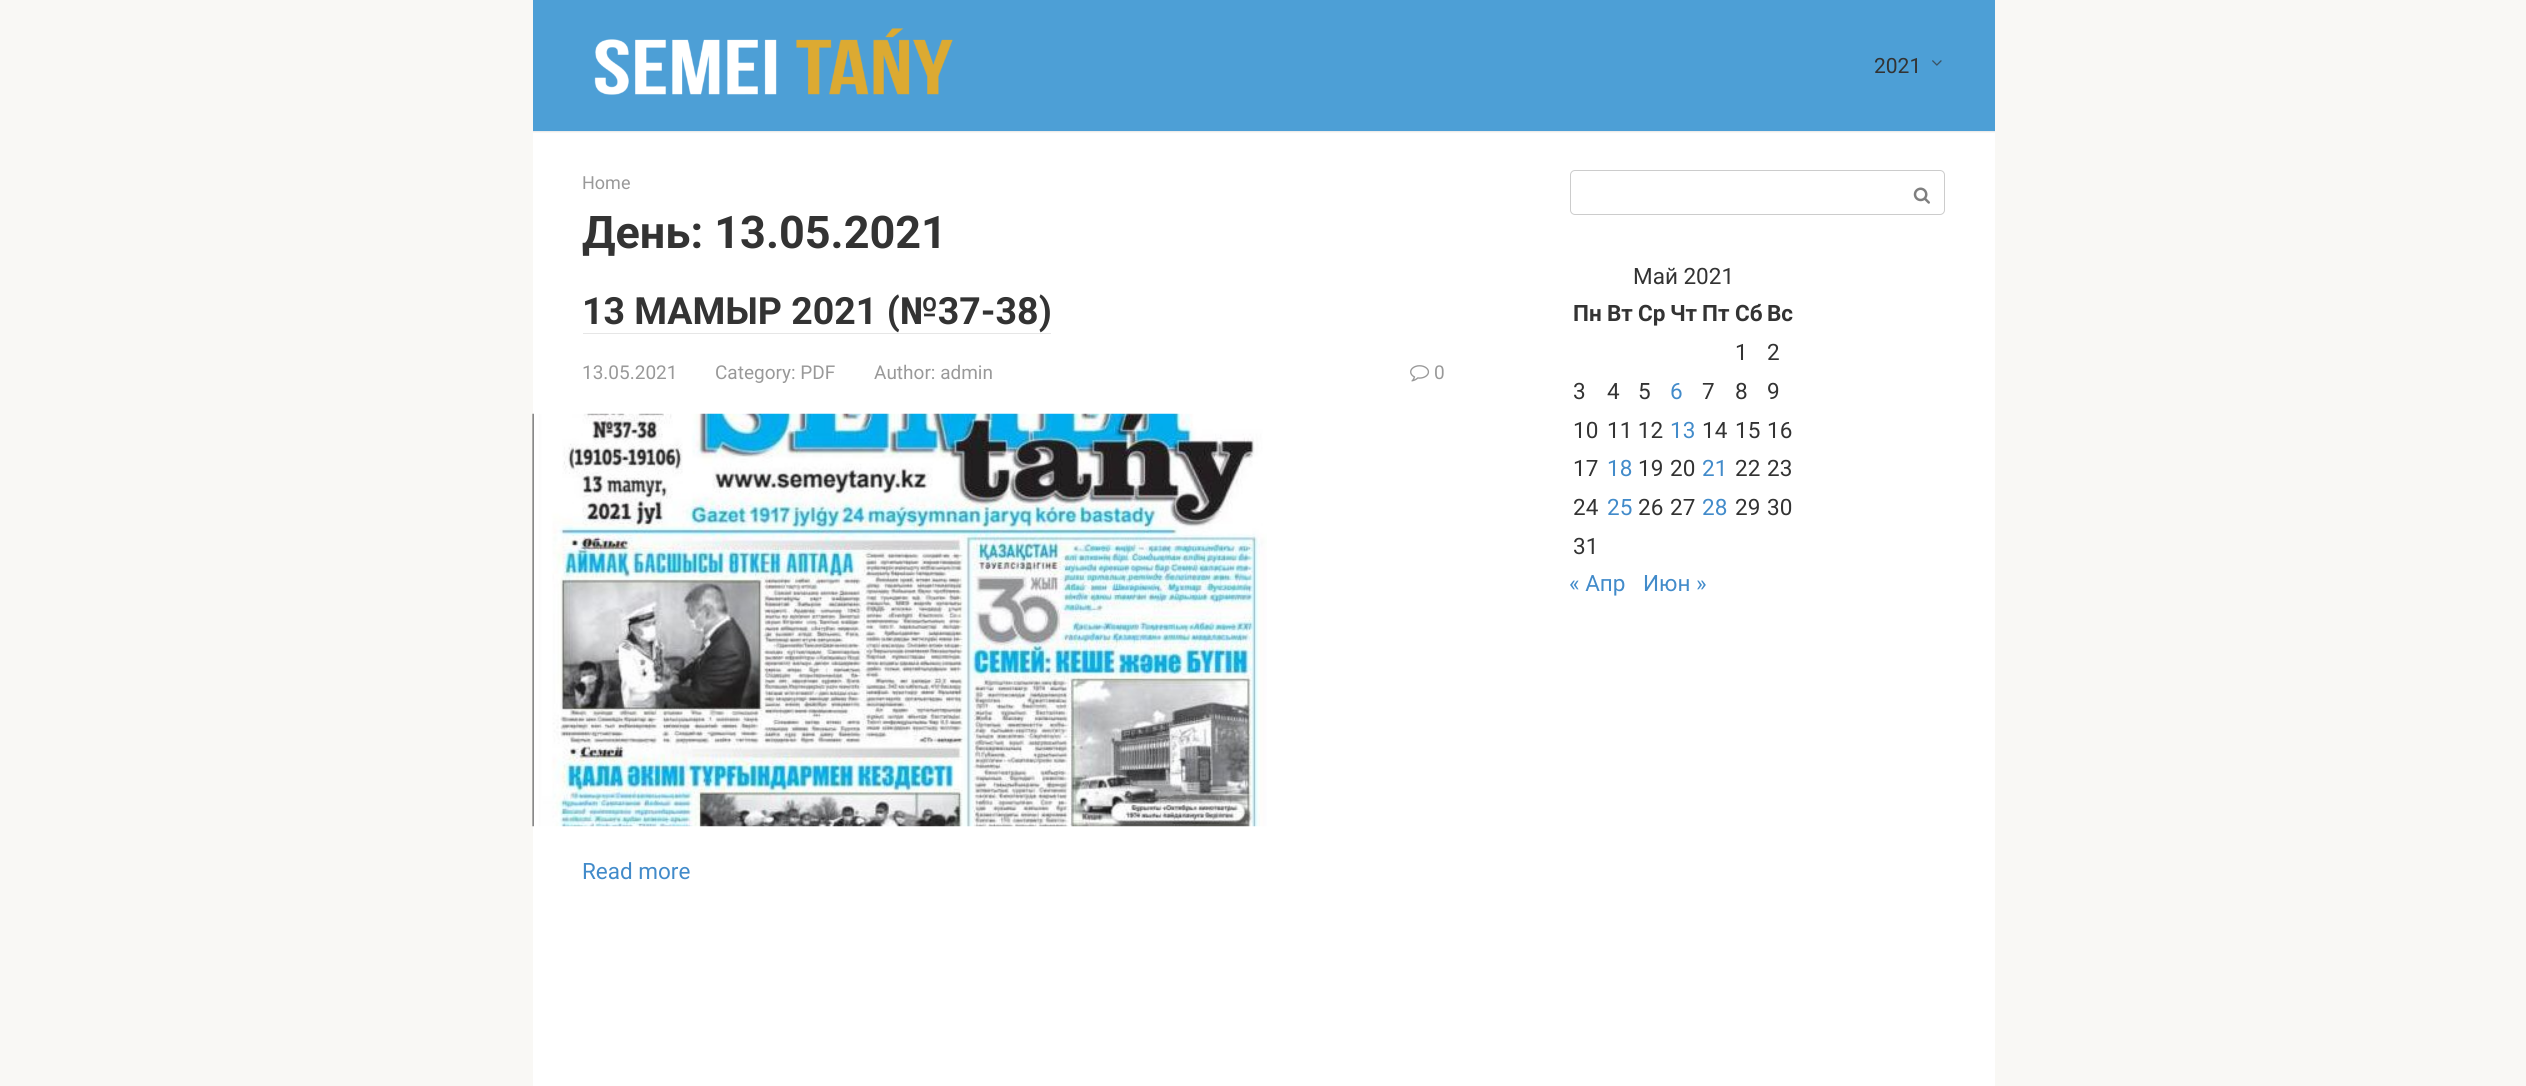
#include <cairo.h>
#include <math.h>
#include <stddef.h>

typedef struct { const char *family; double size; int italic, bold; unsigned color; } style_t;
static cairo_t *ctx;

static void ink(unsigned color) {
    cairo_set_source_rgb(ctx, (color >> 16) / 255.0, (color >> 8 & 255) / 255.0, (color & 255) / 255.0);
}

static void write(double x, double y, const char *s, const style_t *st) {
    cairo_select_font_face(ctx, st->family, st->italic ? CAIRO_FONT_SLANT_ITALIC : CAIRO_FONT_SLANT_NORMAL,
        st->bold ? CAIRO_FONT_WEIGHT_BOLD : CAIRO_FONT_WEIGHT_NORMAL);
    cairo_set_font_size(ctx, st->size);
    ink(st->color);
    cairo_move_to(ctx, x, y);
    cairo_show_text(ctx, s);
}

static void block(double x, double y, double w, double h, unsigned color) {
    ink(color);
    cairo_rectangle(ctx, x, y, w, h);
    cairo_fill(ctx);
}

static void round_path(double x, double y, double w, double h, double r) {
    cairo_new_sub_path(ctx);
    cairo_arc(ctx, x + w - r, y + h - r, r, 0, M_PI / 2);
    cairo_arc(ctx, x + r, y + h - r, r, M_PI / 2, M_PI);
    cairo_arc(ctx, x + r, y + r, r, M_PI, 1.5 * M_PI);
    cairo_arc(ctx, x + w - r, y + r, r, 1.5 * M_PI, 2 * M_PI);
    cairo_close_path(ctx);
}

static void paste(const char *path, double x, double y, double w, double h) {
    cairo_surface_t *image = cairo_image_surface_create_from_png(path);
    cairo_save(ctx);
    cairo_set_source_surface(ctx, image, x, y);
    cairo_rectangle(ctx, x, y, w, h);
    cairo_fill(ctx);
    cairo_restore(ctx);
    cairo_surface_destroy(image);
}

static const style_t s1 = {"Roboto", 21, 0, 0, 0x333333};
static const style_t s2 = {"Roboto", 18, 0, 0, 0x999999};
static const style_t s3 = {"Roboto", 45, 0, 1, 0x333333};
static const style_t s4 = {"Roboto", 37.5, 0, 1, 0x333333};
static const style_t s5 = {"Roboto", 19, 0, 0, 0x999999};
static const style_t s6 = {"Roboto", 22.5, 0, 0, 0x428bca};
static const style_t s7 = {"Roboto", 22.5, 0, 0, 0x333333};
static const style_t s8 = {"Roboto", 22.5, 0, 1, 0x333333};

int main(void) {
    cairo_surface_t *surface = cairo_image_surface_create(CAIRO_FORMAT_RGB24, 2526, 1086);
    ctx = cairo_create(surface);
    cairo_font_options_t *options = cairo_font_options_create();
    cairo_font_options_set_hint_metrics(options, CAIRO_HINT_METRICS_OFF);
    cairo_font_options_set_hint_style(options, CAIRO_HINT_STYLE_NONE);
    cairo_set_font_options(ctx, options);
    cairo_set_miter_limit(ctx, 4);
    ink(0xf9f8f5);
    cairo_paint(ctx);
    block(533, 0, 1462, 131, 0x4d9fd6);
    paste("pic1.png", 594, 28, 359, 67);
    write(1874, 73, "2021", &s1);
    paste("pic2.png", 1932, 60, 10, 6);
    block(533, 131, 1462, 1, 0xececec);
    block(533, 133, 1462, 953, 0xffffff);
    write(582, 189, "Home", &s2);
    write(582, 248, "День: 13.05.2021", &s3);
    write(582, 324, "13 МАМЫР 2021 (№37-38)", &s4);
    block(583, 333, 468, 1, 0xe6e6e6);
    write(582, 379, "13.05.2021", &s5);
    write(715, 379, "Category: PDF", &s5);
    write(874, 379, "Author: admin", &s5);
    paste("pic3.png", 1410, 365, 20, 17);
    write(1434, 379, "0", &s5);
    paste("pic4.png", 532, 413, 735, 414);
    write(582, 879, "Read more", &s6);
    round_path(1570.5, 170.5, 374, 44, 4.5);
    ink(0xcccccc);
    cairo_set_line_width(ctx, 1);
    cairo_stroke(ctx);
    paste("pic5.png", 1913, 187, 17, 17);
    write(1633, 284, "Май 2021", &s7);
    write(1573, 321, "Пн", &s8);
    write(1607, 321, "Вт", &s8);
    write(1638, 321, "Ср", &s8);
    write(1670, 321, "Чт", &s8);
    write(1702, 321, "Пт", &s8);
    write(1735, 321, "Сб", &s8);
    write(1767, 321, "Вс", &s8);
    write(1735, 360, "1", &s7);
    write(1767, 360, "2", &s7);
    write(1573, 399, "3", &s7);
    write(1607, 399, "4", &s7);
    write(1638, 399, "5", &s7);
    write(1670, 399, "6", &s6);
    write(1702, 399, "7", &s7);
    write(1735, 399, "8", &s7);
    write(1767, 399, "9", &s7);
    write(1573, 438, "10", &s7);
    write(1607, 438, "11 12", &s7);
    write(1670, 438, "13", &s6);
    write(1702, 438, "14", &s7);
    write(1735, 438, "15", &s7);
    write(1767, 438, "16", &s7);
    write(1573, 476, "17", &s7);
    write(1607, 476, "18", &s6);
    write(1638, 476, "19", &s7);
    write(1670, 476, "20", &s7);
    write(1702, 476, "21", &s6);
    write(1735, 476, "22", &s7);
    write(1767, 476, "23", &s7);
    write(1573, 515, "24", &s7);
    write(1607, 515, "25", &s6);
    write(1638, 515, "26", &s7);
    write(1670, 515, "27", &s7);
    write(1702, 515, "28", &s6);
    write(1735, 515, "29", &s7);
    write(1767, 515, "30", &s7);
    write(1573, 554, "31", &s7);
    write(1569, 591, "« Апр", &s6);
    write(1643, 591, "Июн »", &s6);
    cairo_surface_write_to_png(surface, "screenshot.png");
    cairo_font_options_destroy(options);
    cairo_destroy(ctx);
    cairo_surface_destroy(surface);
    return 0;
}
